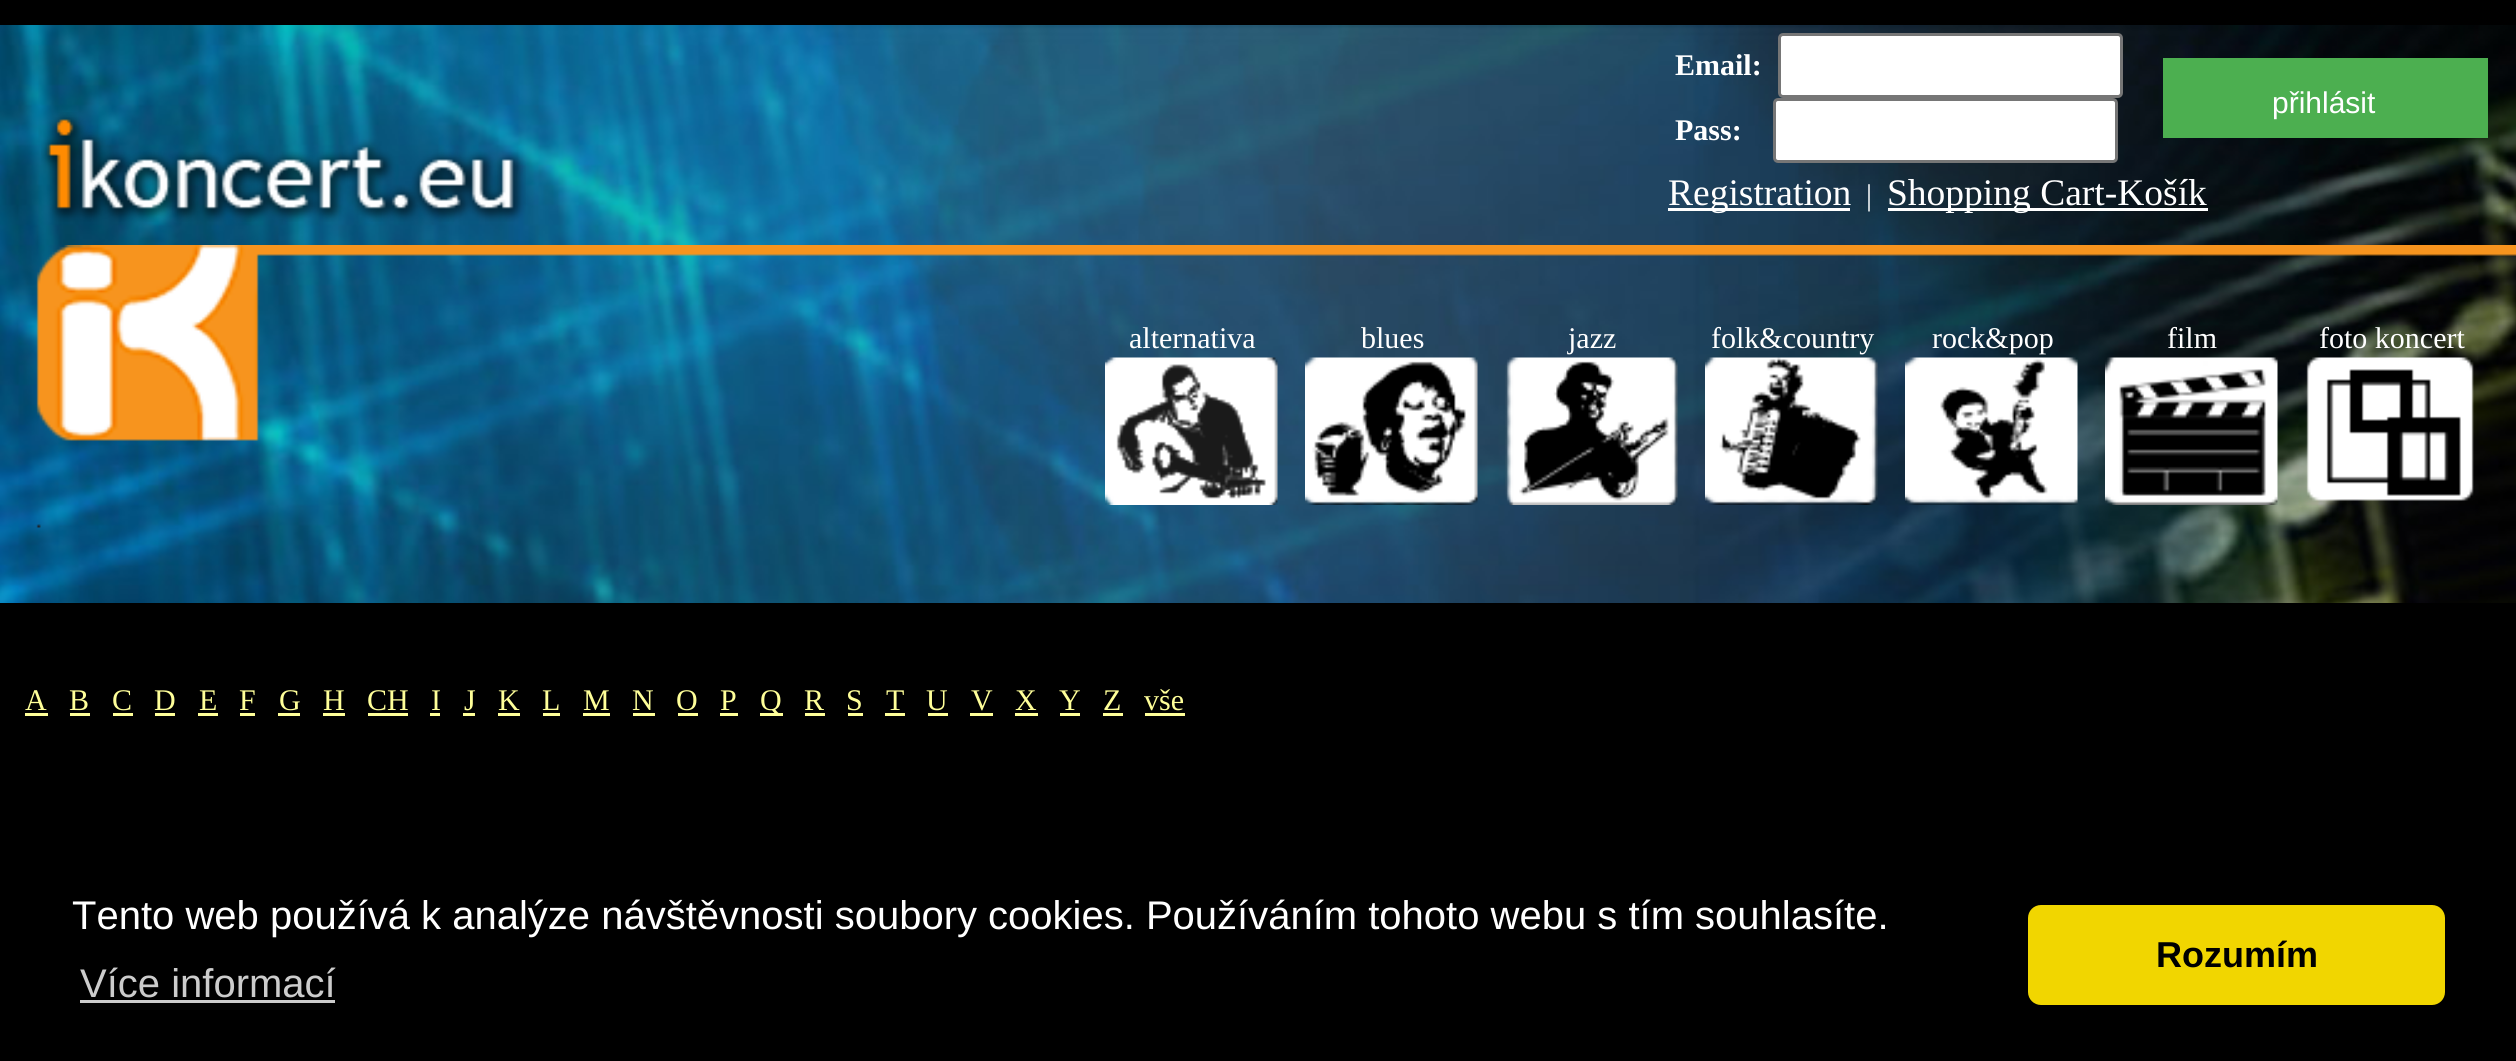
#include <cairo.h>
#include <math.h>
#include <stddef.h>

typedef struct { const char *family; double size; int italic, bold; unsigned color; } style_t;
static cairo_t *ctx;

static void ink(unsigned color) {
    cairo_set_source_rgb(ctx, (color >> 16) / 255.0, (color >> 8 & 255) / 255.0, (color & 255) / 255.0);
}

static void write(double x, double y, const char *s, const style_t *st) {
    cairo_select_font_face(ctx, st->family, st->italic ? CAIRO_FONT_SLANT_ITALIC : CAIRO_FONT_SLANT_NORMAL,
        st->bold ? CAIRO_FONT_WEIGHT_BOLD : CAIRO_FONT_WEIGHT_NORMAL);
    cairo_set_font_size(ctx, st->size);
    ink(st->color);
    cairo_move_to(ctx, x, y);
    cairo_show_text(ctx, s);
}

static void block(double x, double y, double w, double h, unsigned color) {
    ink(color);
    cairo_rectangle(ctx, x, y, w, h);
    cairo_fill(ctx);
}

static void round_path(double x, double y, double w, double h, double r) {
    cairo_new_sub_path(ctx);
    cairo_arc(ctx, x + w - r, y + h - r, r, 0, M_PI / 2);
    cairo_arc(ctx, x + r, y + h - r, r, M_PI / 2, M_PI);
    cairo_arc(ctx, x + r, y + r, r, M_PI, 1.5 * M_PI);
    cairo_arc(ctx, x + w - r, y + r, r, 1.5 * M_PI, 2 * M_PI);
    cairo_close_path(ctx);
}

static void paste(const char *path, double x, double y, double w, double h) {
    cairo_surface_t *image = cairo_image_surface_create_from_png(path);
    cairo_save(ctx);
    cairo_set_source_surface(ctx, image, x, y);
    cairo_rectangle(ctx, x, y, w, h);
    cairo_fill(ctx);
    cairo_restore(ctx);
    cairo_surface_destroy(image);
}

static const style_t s1 = {"Liberation Serif", 30, 0, 1, 0xffffff};
static const style_t s2 = {"Liberation Sans", 30, 0, 0, 0xffffff};
static const style_t s3 = {"Liberation Serif", 37.5, 0, 0, 0xffffff};
static const style_t s4 = {"Liberation Serif", 30, 0, 0, 0xffffff};
static const style_t s5 = {"Liberation Serif", 30, 0, 0, 0xffff99};
static const style_t s6 = {"Liberation Sans", 40, 0, 0, 0xffffff};
static const style_t s7 = {"Liberation Sans", 40, 0, 0, 0xcccccc};
static const style_t s8 = {"Liberation Sans", 36, 0, 1, 0x000000};

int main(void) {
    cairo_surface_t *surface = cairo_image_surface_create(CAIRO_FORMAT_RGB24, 2516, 1061);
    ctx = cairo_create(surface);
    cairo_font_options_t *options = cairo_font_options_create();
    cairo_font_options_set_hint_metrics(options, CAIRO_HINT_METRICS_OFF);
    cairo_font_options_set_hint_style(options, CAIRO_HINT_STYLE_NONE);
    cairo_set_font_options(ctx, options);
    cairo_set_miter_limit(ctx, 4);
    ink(0x000000);
    cairo_paint(ctx);
    paste("pic1.png", 0, 25, 2516, 578);
    paste("pic2.png", 41, 112, 485, 110);
    write(1675, 75, "Email:", &s1);
    round_path(1779.5, 34.5, 342, 62, 3.5);
    cairo_fill_preserve(ctx);
    ink(0x767676);
    cairo_set_line_width(ctx, 3);
    cairo_stroke(ctx);
    write(1675, 140, "Pass:", &s1);
    round_path(1774.5, 99.5, 342, 62, 3.5);
    cairo_fill_preserve(ctx);
    ink(0x767676);
    cairo_stroke(ctx);
    block(2163, 58, 325, 80, 0x4caf50);
    write(2272, 113, "přihlásit", &s2);
    block(1668, 208, 182, 3, 0xffffff);
    write(1668, 205, "Registration", &s3);
    write(1866, 205, "|", &s4);
    block(1888, 208, 320, 3, 0xffffff);
    write(1887, 205, "Shopping Cart-Košík", &s3);
    paste("pic3.png", 36, 245, 2480, 283);
    write(1129, 348, "alternativa", &s4);
    paste("pic4.png", 1105, 357, 173, 148);
    write(1361, 348, "blues", &s4);
    paste("pic5.png", 1305, 357, 173, 148);
    write(1568, 348, "jazz", &s4);
    paste("pic6.png", 1505, 357, 173, 148);
    write(1711, 348, "folk&country", &s4);
    paste("pic7.png", 1705, 357, 173, 148);
    write(1932, 348, "rock&pop", &s4);
    paste("pic8.png", 1905, 357, 173, 148);
    write(2167, 348, "film", &s4);
    paste("pic9.png", 2105, 357, 173, 148);
    write(2319, 348, "foto koncert", &s4);
    paste("pic10.png", 2306, 357, 168, 144);
    write(25, 710, "A", &s5);
    block(25, 713, 23, 3, 0xffff99);
    write(69, 710, "B", &s5);
    block(70, 713, 20, 3, 0xffff99);
    write(112, 710, "C", &s5);
    block(113, 713, 20, 3, 0xffff99);
    write(154, 710, "D", &s5);
    block(155, 713, 20, 3, 0xffff99);
    write(199, 710, "E", &s5);
    block(198, 713, 20, 3, 0xffff99);
    write(239, 710, "F", &s5);
    block(240, 713, 15, 3, 0xffff99);
    write(279, 710, "G", &s5);
    block(278, 713, 22, 3, 0xffff99);
    write(323, 710, "H", &s5);
    block(323, 713, 22, 3, 0xffff99);
    write(367, 710, "CH", &s5);
    block(368, 713, 40, 3, 0xffff99);
    write(431, 710, "I", &s5);
    block(430, 713, 10, 3, 0xffff99);
    write(464, 710, "J", &s5);
    block(463, 713, 12, 3, 0xffff99);
    write(498, 710, "K", &s5);
    block(498, 713, 22, 3, 0xffff99);
    write(542, 710, "L", &s5);
    block(543, 713, 17, 3, 0xffff99);
    write(583, 710, "M", &s5);
    block(583, 713, 27, 3, 0xffff99);
    write(632, 710, "N", &s5);
    block(633, 713, 22, 3, 0xffff99);
    write(676, 710, "O", &s5);
    block(678, 713, 20, 3, 0xffff99);
    write(720, 710, "P", &s5);
    block(720, 713, 18, 3, 0xffff99);
    block(760, 713, 23, 3, 0xffff99);
    write(760, 710, "Q", &s5);
    write(804, 710, "R", &s5);
    block(805, 713, 20, 3, 0xffff99);
    write(846, 710, "S", &s5);
    block(848, 713, 15, 3, 0xffff99);
    write(886, 710, "T", &s5);
    block(885, 713, 20, 3, 0xffff99);
    write(926, 710, "U", &s5);
    block(928, 713, 20, 3, 0xffff99);
    write(971, 710, "V", &s5);
    block(970, 713, 23, 3, 0xffff99);
    write(1015, 710, "X", &s5);
    block(1015, 713, 23, 3, 0xffff99);
    write(1059, 710, "Y", &s5);
    block(1060, 713, 20, 3, 0xffff99);
    write(1103, 710, "Z", &s5);
    block(1103, 713, 20, 3, 0xffff99);
    write(1144, 710, "vše", &s5);
    block(1145, 713, 40, 3, 0xffff99);
    write(72, 929, "Tento web používá k analýze návštěvnosti soubory cookies. Používáním tohoto webu s tím souhlasíte.", &s6);
    write(80, 997, "Více informací", &s7);
    block(80, 1000, 255, 3, 0xcccccc);
    ink(0xf1d600);
    round_path(2028, 905, 417, 100, 13);
    cairo_fill(ctx);
    write(2156, 967, "Rozumím", &s8);
    cairo_surface_write_to_png(surface, "screenshot.png");
    cairo_font_options_destroy(options);
    cairo_destroy(ctx);
    cairo_surface_destroy(surface);
    return 0;
}
